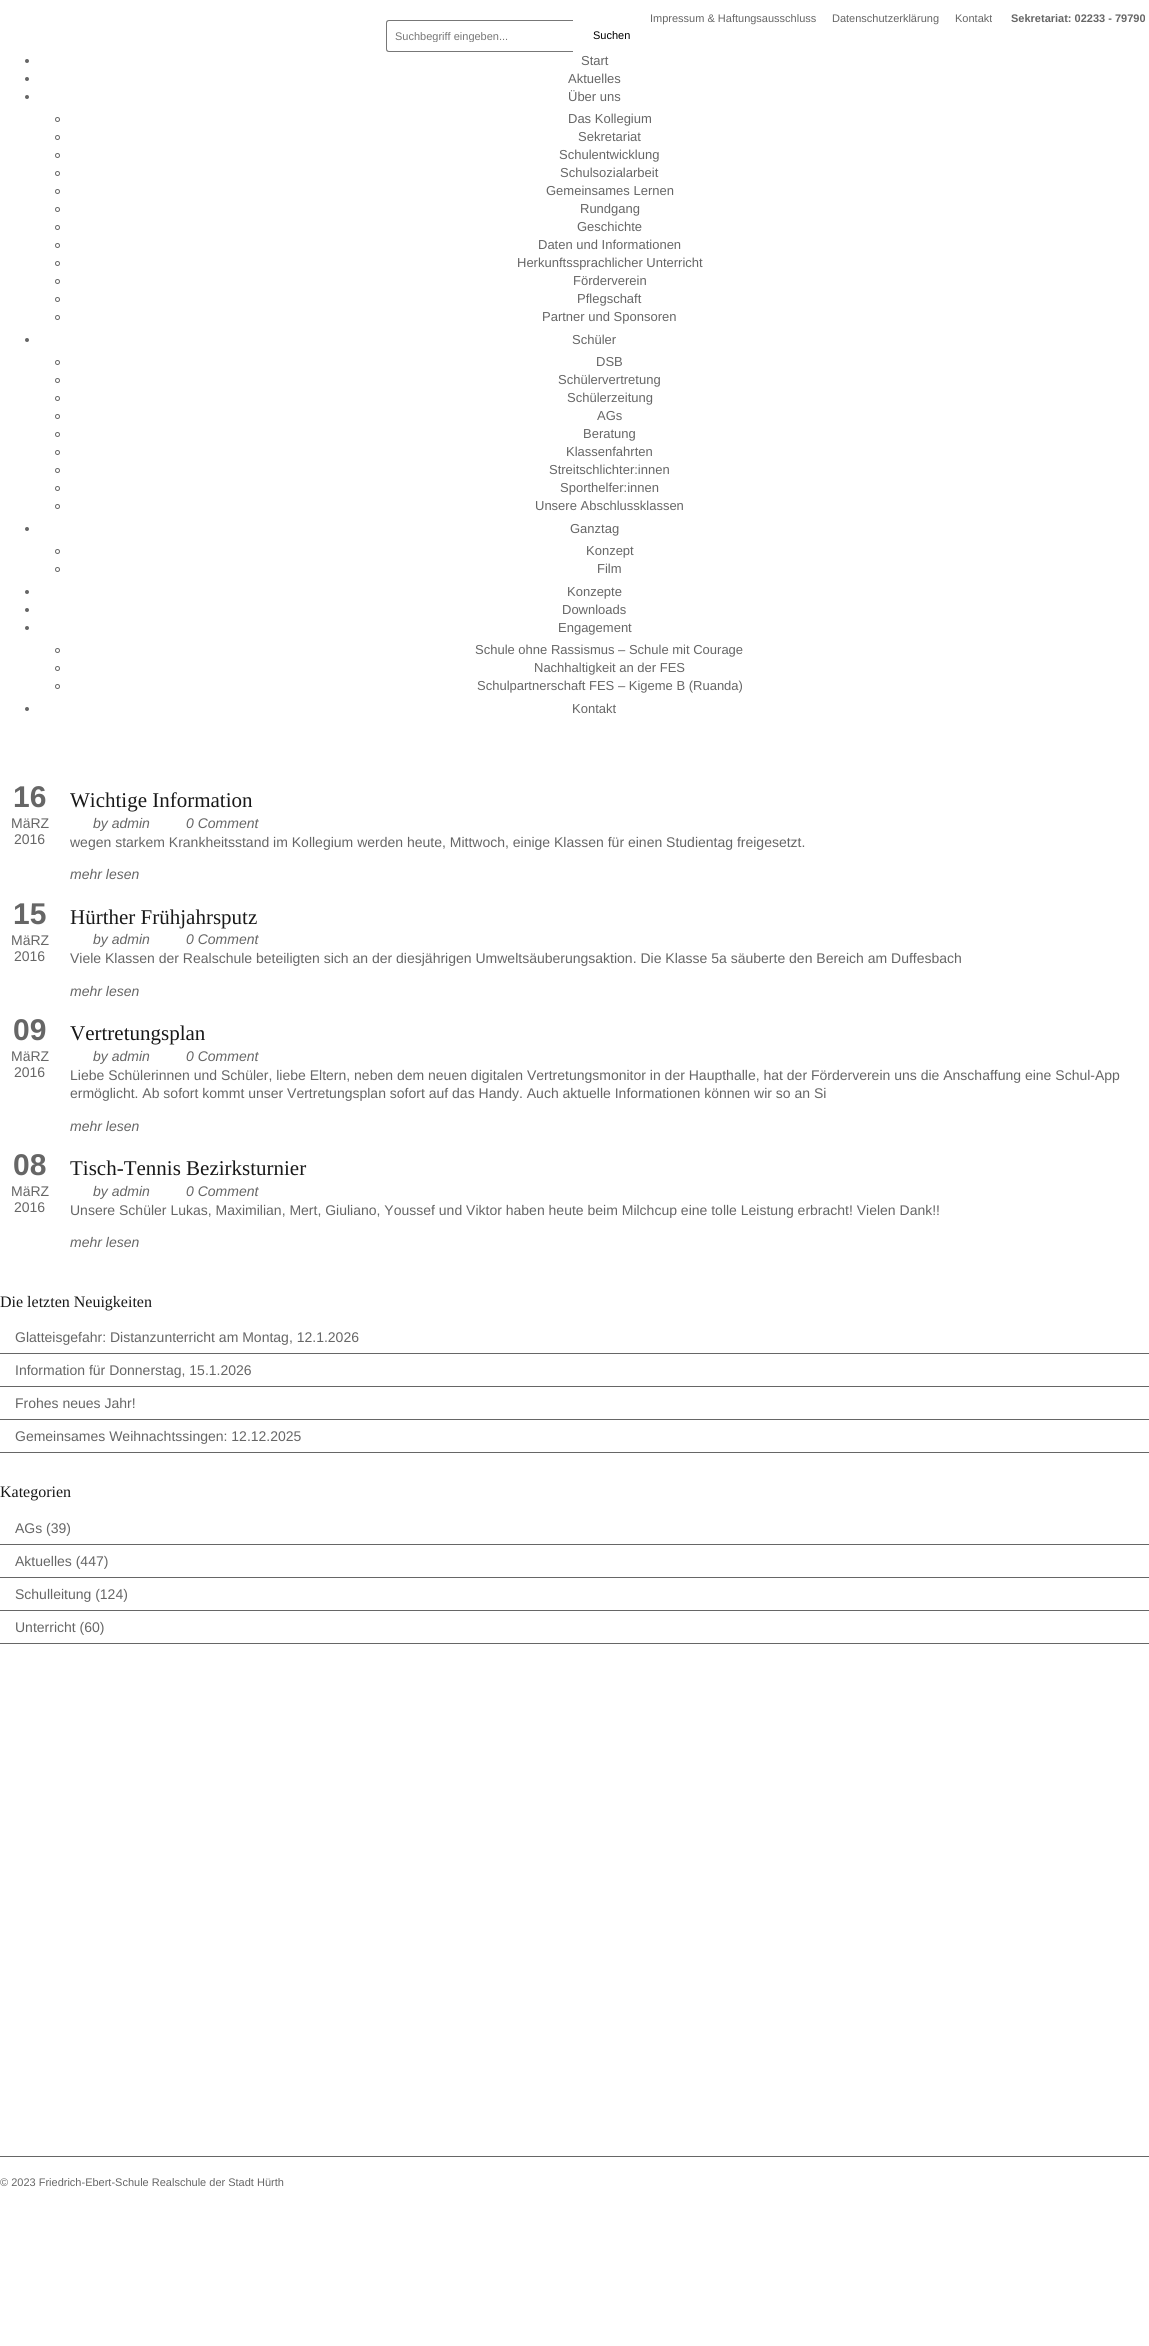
#include <cairo.h>
#include <math.h>
#include <stddef.h>

typedef struct { const char *family; double size; int italic, bold; unsigned color; } style_t;
static cairo_t *ctx;

static void ink(unsigned color) {
    cairo_set_source_rgb(ctx, (color >> 16) / 255.0, (color >> 8 & 255) / 255.0, (color & 255) / 255.0);
}

static void write(double x, double y, const char *s, const style_t *st) {
    cairo_select_font_face(ctx, st->family, st->italic ? CAIRO_FONT_SLANT_ITALIC : CAIRO_FONT_SLANT_NORMAL,
        st->bold ? CAIRO_FONT_WEIGHT_BOLD : CAIRO_FONT_WEIGHT_NORMAL);
    cairo_set_font_size(ctx, st->size);
    ink(st->color);
    cairo_move_to(ctx, x, y);
    cairo_show_text(ctx, s);
}

static void block(double x, double y, double w, double h, unsigned color) {
    ink(color);
    cairo_rectangle(ctx, x, y, w, h);
    cairo_fill(ctx);
}

static const style_t s1 = {"Liberation Sans", 11, 0, 0, 0x666666};
static const style_t s2 = {"Liberation Sans", 11, 0, 1, 0x666666};
static const style_t s3 = {"Liberation Sans", 11, 0, 0, 0x777777};
static const style_t s4 = {"Liberation Sans", 11, 0, 0, 0x000000};
static const style_t s5 = {"Liberation Sans", 13, 0, 0, 0x666666};
static const style_t s6 = {"Liberation Sans", 30, 0, 1, 0x666666};
static const style_t s7 = {"Liberation Sans", 14, 0, 0, 0x666666};
static const style_t s8 = {"Liberation Serif", 21, 0, 0, 0x181818};
static const style_t s9 = {"Liberation Sans", 14, 1, 0, 0x666666};
static const style_t s10 = {"Liberation Serif", 16, 0, 0, 0x181818};

int main(void) {
    cairo_surface_t *surface = cairo_image_surface_create(CAIRO_FORMAT_RGB24, 1149, 2346);
    ctx = cairo_create(surface);
    cairo_font_options_t *options = cairo_font_options_create();
    cairo_font_options_set_hint_metrics(options, CAIRO_HINT_METRICS_OFF);
    cairo_font_options_set_hint_style(options, CAIRO_HINT_STYLE_NONE);
    cairo_set_font_options(ctx, options);
    cairo_set_miter_limit(ctx, 4);
    ink(0xffffff);
    cairo_paint(ctx);
    write(650, 22, "Impressum & Haftungsausschluss", &s1);
    write(832, 22, "Datenschutzerklärung", &s1);
    write(955, 22, "Kontakt", &s1);
    write(1011, 22, "Sekretariat: 02233 - 79790", &s2);
    ink(0x777777);
    cairo_set_fill_rule(ctx, CAIRO_FILL_RULE_EVEN_ODD);
    cairo_new_path(ctx);
    cairo_move_to(ctx, 389, 20);
    cairo_line_to(ctx, 573, 20);
    cairo_line_to(ctx, 573, 52);
    cairo_line_to(ctx, 389, 52);
    cairo_curve_to(ctx, 387, 52, 386, 51, 386, 49);
    cairo_line_to(ctx, 386, 23);
    cairo_curve_to(ctx, 386, 21, 387, 20, 389, 20);
    cairo_close_path(ctx);
    cairo_move_to(ctx, 389, 21);
    cairo_line_to(ctx, 573, 21);
    cairo_line_to(ctx, 573, 51);
    cairo_line_to(ctx, 389, 51);
    cairo_curve_to(ctx, 388, 51, 387, 50, 387, 49);
    cairo_line_to(ctx, 387, 23);
    cairo_curve_to(ctx, 387, 22, 388, 21, 389, 21);
    cairo_close_path(ctx);
    cairo_fill(ctx);
    cairo_save(ctx);
    cairo_set_fill_rule(ctx, CAIRO_FILL_RULE_WINDING);
    cairo_rectangle(ctx, 395, 30, 170, 12);
    cairo_clip(ctx);
    write(395, 40, "Suchbegriff eingeben...", &s3);
    cairo_restore(ctx);
    write(593, 39, "Suchen", &s4);
    ink(0x666666);
    cairo_new_path(ctx);
    cairo_arc(ctx, 27, 61, 2, 0, 2 * M_PI);
    cairo_fill(ctx);
    write(581, 65, "Start", &s5);
    cairo_new_path(ctx);
    cairo_arc(ctx, 27, 79, 2, 0, 2 * M_PI);
    cairo_fill(ctx);
    write(568, 83, "Aktuelles", &s5);
    cairo_new_path(ctx);
    cairo_arc(ctx, 27, 97, 2, 0, 2 * M_PI);
    cairo_fill(ctx);
    write(568, 101, "Über uns", &s5);
    cairo_new_path(ctx);
    cairo_arc(ctx, 57.5, 119.5, 2, 0, 2 * M_PI);
    cairo_set_line_width(ctx, 1);
    cairo_stroke(ctx);
    write(568, 123, "Das Kollegium", &s5);
    cairo_new_path(ctx);
    cairo_arc(ctx, 57.5, 137.5, 2, 0, 2 * M_PI);
    cairo_stroke(ctx);
    write(578, 141, "Sekretariat", &s5);
    cairo_new_path(ctx);
    cairo_arc(ctx, 57.5, 155.5, 2, 0, 2 * M_PI);
    cairo_stroke(ctx);
    write(559, 159, "Schulentwicklung", &s5);
    cairo_new_path(ctx);
    cairo_arc(ctx, 57.5, 173.5, 2, 0, 2 * M_PI);
    cairo_stroke(ctx);
    write(560, 177, "Schulsozialarbeit", &s5);
    cairo_new_path(ctx);
    cairo_arc(ctx, 57.5, 191.5, 2, 0, 2 * M_PI);
    cairo_stroke(ctx);
    write(546, 195, "Gemeinsames Lernen", &s5);
    cairo_new_path(ctx);
    cairo_arc(ctx, 57.5, 209.5, 2, 0, 2 * M_PI);
    cairo_stroke(ctx);
    write(580, 213, "Rundgang", &s5);
    cairo_new_path(ctx);
    cairo_arc(ctx, 57.5, 227.5, 2, 0, 2 * M_PI);
    cairo_stroke(ctx);
    write(577, 231, "Geschichte", &s5);
    cairo_new_path(ctx);
    cairo_arc(ctx, 57.5, 245.5, 2, 0, 2 * M_PI);
    cairo_stroke(ctx);
    write(538, 249, "Daten und Informationen", &s5);
    cairo_new_path(ctx);
    cairo_arc(ctx, 57.5, 263.5, 2, 0, 2 * M_PI);
    cairo_stroke(ctx);
    write(517, 267, "Herkunftssprachlicher Unterricht", &s5);
    cairo_new_path(ctx);
    cairo_arc(ctx, 57.5, 281.5, 2, 0, 2 * M_PI);
    cairo_stroke(ctx);
    write(573, 285, "Förderverein", &s5);
    cairo_new_path(ctx);
    cairo_arc(ctx, 57.5, 299.5, 2, 0, 2 * M_PI);
    cairo_stroke(ctx);
    write(577, 303, "Pflegschaft", &s5);
    cairo_new_path(ctx);
    cairo_arc(ctx, 57.5, 317.5, 2, 0, 2 * M_PI);
    cairo_stroke(ctx);
    write(542, 321, "Partner und Sponsoren", &s5);
    cairo_new_path(ctx);
    cairo_arc(ctx, 27, 340, 2, 0, 2 * M_PI);
    cairo_fill(ctx);
    write(572, 344, "Schüler", &s5);
    cairo_new_path(ctx);
    cairo_arc(ctx, 57.5, 362.5, 2, 0, 2 * M_PI);
    cairo_stroke(ctx);
    write(596, 366, "DSB", &s5);
    cairo_new_path(ctx);
    cairo_arc(ctx, 57.5, 380.5, 2, 0, 2 * M_PI);
    cairo_stroke(ctx);
    write(558, 384, "Schülervertretung", &s5);
    cairo_new_path(ctx);
    cairo_arc(ctx, 57.5, 398.5, 2, 0, 2 * M_PI);
    cairo_stroke(ctx);
    write(567, 402, "Schülerzeitung", &s5);
    cairo_new_path(ctx);
    cairo_arc(ctx, 57.5, 416.5, 2, 0, 2 * M_PI);
    cairo_stroke(ctx);
    write(597, 420, "AGs", &s5);
    cairo_new_path(ctx);
    cairo_arc(ctx, 57.5, 434.5, 2, 0, 2 * M_PI);
    cairo_stroke(ctx);
    write(583, 438, "Beratung", &s5);
    cairo_new_path(ctx);
    cairo_arc(ctx, 57.5, 452.5, 2, 0, 2 * M_PI);
    cairo_stroke(ctx);
    write(566, 456, "Klassenfahrten", &s5);
    cairo_new_path(ctx);
    cairo_arc(ctx, 57.5, 470.5, 2, 0, 2 * M_PI);
    cairo_stroke(ctx);
    write(549, 474, "Streitschlichter:innen", &s5);
    cairo_new_path(ctx);
    cairo_arc(ctx, 57.5, 488.5, 2, 0, 2 * M_PI);
    cairo_stroke(ctx);
    write(560, 492, "Sporthelfer:innen", &s5);
    cairo_new_path(ctx);
    cairo_arc(ctx, 57.5, 506.5, 2, 0, 2 * M_PI);
    cairo_stroke(ctx);
    write(535, 510, "Unsere Abschlussklassen", &s5);
    cairo_new_path(ctx);
    cairo_arc(ctx, 27, 529, 2, 0, 2 * M_PI);
    cairo_fill(ctx);
    write(570, 533, "Ganztag", &s5);
    cairo_new_path(ctx);
    cairo_arc(ctx, 57.5, 551.5, 2, 0, 2 * M_PI);
    cairo_stroke(ctx);
    write(586, 555, "Konzept", &s5);
    cairo_new_path(ctx);
    cairo_arc(ctx, 57.5, 569.5, 2, 0, 2 * M_PI);
    cairo_stroke(ctx);
    write(597, 573, "Film", &s5);
    cairo_new_path(ctx);
    cairo_arc(ctx, 27, 592, 2, 0, 2 * M_PI);
    cairo_fill(ctx);
    write(567, 596, "Konzepte", &s5);
    cairo_new_path(ctx);
    cairo_arc(ctx, 27, 610, 2, 0, 2 * M_PI);
    cairo_fill(ctx);
    write(562, 614, "Downloads", &s5);
    cairo_new_path(ctx);
    cairo_arc(ctx, 27, 628, 2, 0, 2 * M_PI);
    cairo_fill(ctx);
    write(558, 632, "Engagement", &s5);
    cairo_new_path(ctx);
    cairo_arc(ctx, 57.5, 650.5, 2, 0, 2 * M_PI);
    cairo_stroke(ctx);
    write(475, 654, "Schule ohne Rassismus – Schule mit Courage", &s5);
    cairo_new_path(ctx);
    cairo_arc(ctx, 57.5, 668.5, 2, 0, 2 * M_PI);
    cairo_stroke(ctx);
    write(534, 672, "Nachhaltigkeit an der FES", &s5);
    cairo_new_path(ctx);
    cairo_arc(ctx, 57.5, 686.5, 2, 0, 2 * M_PI);
    cairo_stroke(ctx);
    write(477, 690, "Schulpartnerschaft FES – Kigeme B (Ruanda)", &s5);
    cairo_new_path(ctx);
    cairo_arc(ctx, 27, 709, 2, 0, 2 * M_PI);
    cairo_fill(ctx);
    write(572, 713, "Kontakt", &s5);
    write(13, 807, "16", &s6);
    write(11, 828, "MäRZ", &s7);
    write(14, 844, "2016", &s7);
    write(70, 807, "Wichtige Information", &s8);
    write(93, 828, "by admin", &s9);
    write(186, 828, "0 Comment", &s9);
    write(70, 847, "wegen starkem Krankheitsstand im Kollegium werden heute, Mittwoch, einige Klassen für einen Studientag freigesetzt.", &s7);
    write(70, 879, "mehr lesen", &s9);
    write(13, 924, "15", &s6);
    write(11, 945, "MäRZ", &s7);
    write(14, 961, "2016", &s7);
    write(70, 924, "Hürther Frühjahrsputz", &s8);
    write(93, 944, "by admin", &s9);
    write(186, 944, "0 Comment", &s9);
    write(70, 963, "Viele Klassen der Realschule beteiligten sich an der diesjährigen Umweltsäuberungsaktion. Die Klasse 5a säuberte den Bereich am Duffesbach", &s7);
    write(70, 996, "mehr lesen", &s9);
    write(13, 1040, "09", &s6);
    write(11, 1061, "MäRZ", &s7);
    write(14, 1077, "2016", &s7);
    write(70, 1040, "Vertretungsplan", &s8);
    write(93, 1061, "by admin", &s9);
    write(186, 1061, "0 Comment", &s9);
    write(70, 1080, "Liebe Schülerinnen und Schüler, liebe Eltern, neben dem neuen digitalen Vertretungsmonitor in der Haupthalle, hat der Förderverein uns die Anschaffung eine Schul-App", &s7);
    write(70, 1098, "ermöglicht. Ab sofort kommt unser Vertretungsplan sofort auf das Handy. Auch aktuelle Informationen können wir so an Si", &s7);
    write(70, 1131, "mehr lesen", &s9);
    write(13, 1175, "08", &s6);
    write(11, 1196, "MäRZ", &s7);
    write(14, 1212, "2016", &s7);
    write(70, 1175, "Tisch-Tennis Bezirksturnier", &s8);
    write(93, 1196, "by admin", &s9);
    write(186, 1196, "0 Comment", &s9);
    write(70, 1215, "Unsere Schüler Lukas, Maximilian, Mert, Giuliano, Youssef und Viktor haben heute beim Milchcup eine tolle Leistung erbracht! Vielen Dank!!", &s7);
    write(70, 1247, "mehr lesen", &s9);
    write(0, 1307, "Die letzten Neuigkeiten", &s10);
    block(0, 1353, 1149, 1, 0x666666);
    write(15, 1342, "Glatteisgefahr: Distanzunterricht am Montag, 12.1.2026", &s7);
    block(0, 1386, 1149, 1, 0x666666);
    write(15, 1375, "Information für Donnerstag, 15.1.2026", &s7);
    block(0, 1419, 1149, 1, 0x666666);
    write(15, 1408, "Frohes neues Jahr!", &s7);
    block(0, 1452, 1149, 1, 0x666666);
    write(15, 1441, "Gemeinsames Weihnachtssingen: 12.12.2025", &s7);
    write(0, 1497, "Kategorien", &s10);
    block(0, 1544, 1149, 1, 0x666666);
    write(15, 1533, "AGs (39)", &s7);
    block(0, 1577, 1149, 1, 0x666666);
    write(15, 1566, "Aktuelles (447)", &s7);
    block(0, 1610, 1149, 1, 0x666666);
    write(15, 1599, "Schulleitung (124)", &s7);
    block(0, 1643, 1149, 1, 0x666666);
    write(15, 1632, "Unterricht (60)", &s7);
    block(0, 2156, 1149, 1, 0x666666);
    write(0, 2186, "© 2023 Friedrich-Ebert-Schule Realschule der Stadt Hürth", &s1);
    cairo_surface_write_to_png(surface, "screenshot.png");
    cairo_font_options_destroy(options);
    cairo_destroy(ctx);
    cairo_surface_destroy(surface);
    return 0;
}
